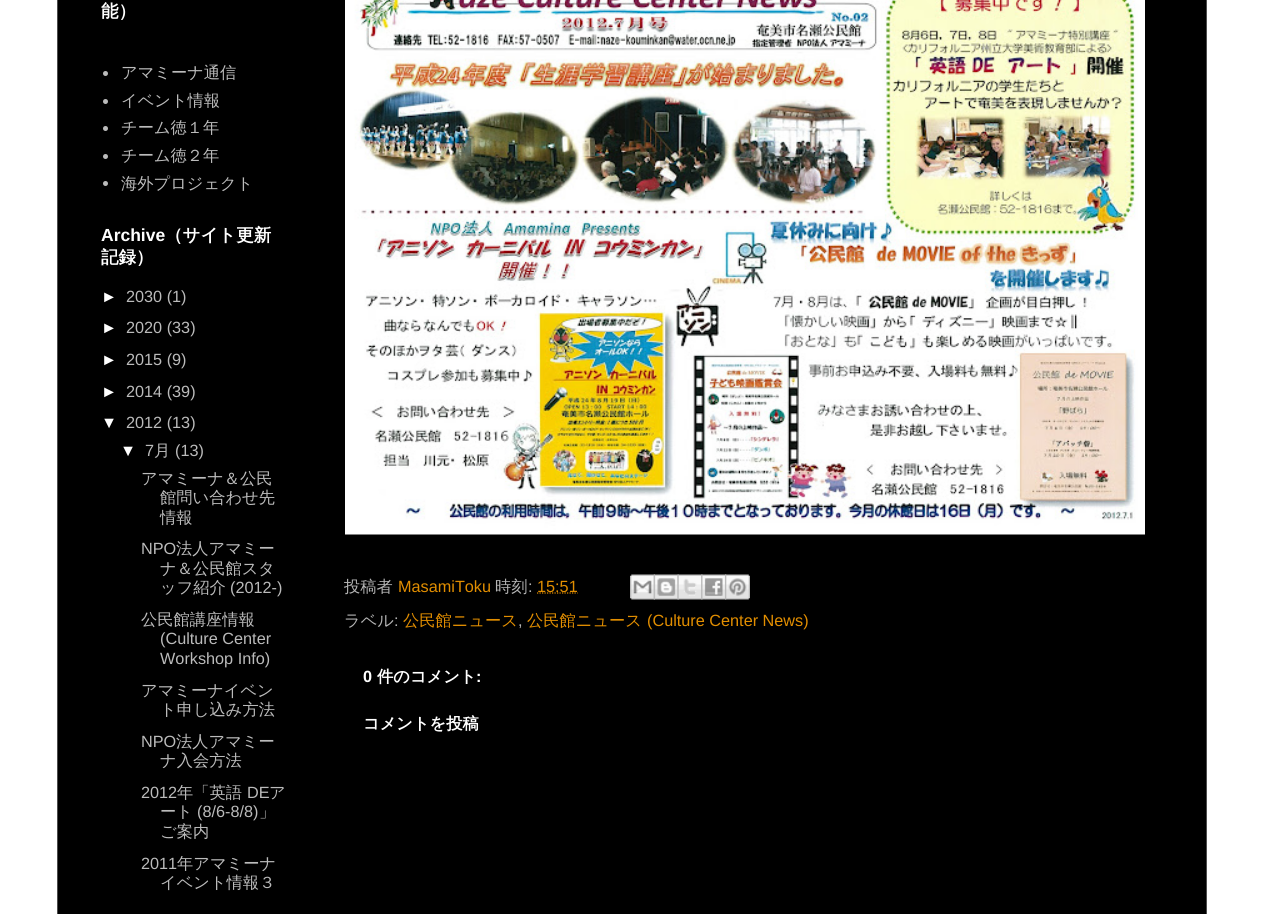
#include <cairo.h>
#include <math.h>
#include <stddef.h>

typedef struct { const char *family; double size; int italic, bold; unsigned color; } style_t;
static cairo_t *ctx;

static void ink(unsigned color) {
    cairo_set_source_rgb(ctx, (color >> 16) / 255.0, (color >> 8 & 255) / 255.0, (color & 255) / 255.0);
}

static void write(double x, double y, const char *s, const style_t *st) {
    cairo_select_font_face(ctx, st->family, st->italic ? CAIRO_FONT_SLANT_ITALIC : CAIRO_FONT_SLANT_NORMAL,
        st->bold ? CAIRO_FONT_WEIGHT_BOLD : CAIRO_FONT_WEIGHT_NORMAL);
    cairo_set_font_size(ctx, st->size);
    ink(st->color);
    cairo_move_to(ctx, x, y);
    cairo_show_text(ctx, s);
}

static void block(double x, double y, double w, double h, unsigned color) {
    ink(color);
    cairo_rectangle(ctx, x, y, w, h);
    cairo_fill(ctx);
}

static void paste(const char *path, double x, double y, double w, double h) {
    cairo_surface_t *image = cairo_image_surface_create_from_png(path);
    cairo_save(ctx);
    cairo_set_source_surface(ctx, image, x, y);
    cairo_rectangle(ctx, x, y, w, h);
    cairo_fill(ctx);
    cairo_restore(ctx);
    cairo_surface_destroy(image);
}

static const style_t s1 = {"WenQuanYi Zen Hei", 17.5, 0, 1, 0xffffff};
static const style_t s2 = {"WenQuanYi Zen Hei Medium", 16.25, 0, 0, 0xbbbbbb};
static const style_t s3 = {"Liberation Sans", 17.5, 0, 1, 0xffffff};
static const style_t s4 = {"Liberation Sans", 16.25, 0, 0, 0xffffff};
static const style_t s5 = {"Liberation Sans", 16.25, 0, 0, 0xbbbbbb};
static const style_t s6 = {"WenQuanYi Zen Hei Medium", 16.25, 0, 0, 0xb4b4b4};
static const style_t s7 = {"Liberation Sans", 16.25, 0, 0, 0xe28e00};
static const style_t s8 = {"Liberation Sans", 16.25, 0, 0, 0xb4b4b4};
static const style_t s9 = {"WenQuanYi Zen Hei Medium", 16.25, 0, 0, 0xe28e00};
static const style_t s10 = {"Liberation Sans", 16.25, 0, 1, 0xffffff};
static const style_t s11 = {"WenQuanYi Zen Hei", 16.25, 0, 1, 0xffffff};

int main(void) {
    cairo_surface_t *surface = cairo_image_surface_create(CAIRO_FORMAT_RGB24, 1262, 914);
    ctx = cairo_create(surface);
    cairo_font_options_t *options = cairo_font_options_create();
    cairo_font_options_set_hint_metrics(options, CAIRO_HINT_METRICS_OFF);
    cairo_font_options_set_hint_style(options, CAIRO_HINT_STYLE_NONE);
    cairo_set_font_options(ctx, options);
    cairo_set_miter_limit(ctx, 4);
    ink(0xffffff);
    cairo_paint(ctx);
    block(57, 0, 1150, 914, 0x4d4d4d);
    block(58, 0, 1148, 914, 0x000000);
    write(101, 17, "能）", &s1);
    ink(0xbbbbbb);
    cairo_new_path(ctx);
    cairo_arc(ctx, 105.5, 73.5, 2.5, 0, 2 * M_PI);
    cairo_fill(ctx);
    write(121, 78, "アマミーナ通信", &s2);
    cairo_new_path(ctx);
    cairo_arc(ctx, 105.5, 101.5, 2.5, 0, 2 * M_PI);
    cairo_fill(ctx);
    write(121, 106, "イベント情報", &s2);
    cairo_new_path(ctx);
    cairo_arc(ctx, 105.5, 128.5, 2.5, 0, 2 * M_PI);
    cairo_fill(ctx);
    write(121, 133, "チーム徳１年", &s2);
    cairo_new_path(ctx);
    cairo_arc(ctx, 105.5, 156.5, 2.5, 0, 2 * M_PI);
    cairo_fill(ctx);
    write(121, 161, "チーム徳２年", &s2);
    cairo_new_path(ctx);
    cairo_arc(ctx, 105.5, 183.5, 2.5, 0, 2 * M_PI);
    cairo_fill(ctx);
    write(121, 189, "海外プロジェクト", &s2);
    write(101, 241, "Archive", &s3);
    write(165, 241, "（サイト更新", &s1);
    write(101, 263, "記録）", &s1);
    write(101, 302, "►", &s4);
    write(126, 302, "2030 (1)", &s5);
    write(101, 333, "►", &s4);
    write(126, 333, "2020 (33)", &s5);
    write(101, 365, "►", &s4);
    write(126, 365, "2015 (9)", &s5);
    write(101, 397, "►", &s4);
    write(126, 397, "2014 (39)", &s5);
    write(101, 428, "▼", &s4);
    write(126, 428, "2012 (13)", &s5);
    write(120, 456, "▼", &s4);
    write(145, 456, "7", &s5);
    write(154, 456, "月", &s2);
    write(175, 456, "(13)", &s5);
    write(141, 484, "アマミーナ＆公民", &s2);
    write(160, 503, "館問い合わせ先", &s2);
    write(160, 523, "情報", &s2);
    write(141, 554, "NPO", &s5);
    write(176, 554, "法人アマミー", &s2);
    write(160, 574, "ナ＆公民館スタ", &s2);
    write(160, 593, "ッフ紹介", &s2);
    write(230, 593, "(2012-)", &s5);
    write(141, 625, "公民館講座情報", &s2);
    write(160, 644, "(Culture Center", &s5);
    write(160, 664, "Workshop Info)", &s5);
    write(141, 696, "アマミーナイベン", &s2);
    write(160, 715, "ト申し込み方法", &s2);
    write(141, 747, "NPO", &s5);
    write(176, 747, "法人アマミー", &s2);
    write(160, 766, "ナ入会方法", &s2);
    write(141, 798, "2012", &s5);
    write(177, 798, "年「英語", &s2);
    write(247, 798, "DE", &s5);
    write(269, 798, "ア", &s2);
    write(160, 817, "ート", &s2);
    write(197, 817, "(8/6-8/8)", &s5);
    write(259, 817, "」", &s2);
    write(160, 837, "ご案内", &s2);
    write(141, 869, "2011", &s5);
    write(177, 869, "年アマミーナ", &s2);
    write(160, 888, "イベント情報３", &s2);
    paste("pic1.png", 345, 0, 800, 535);
    write(344, 592, "投稿者", &s6);
    write(398, 592, "MasamiToku", &s7);
    write(495, 592, "時刻", &s6);
    write(528, 592, ":", &s8);
    cairo_new_path(ctx);
    cairo_move_to(ctx, 537, 593);
    cairo_line_to(ctx, 577.5, 593);
    ink(0xe28e00);
    cairo_set_line_width(ctx, 1.2);
    cairo_set_dash(ctx, (double[]){1.25, 1.25}, 2, 0);
    cairo_stroke(ctx);
    write(537, 592, "15:51", &s7);
    paste("pic2.png", 630, 574, 25, 26);
    paste("pic3.png", 653, 574, 26, 26);
    paste("pic4.png", 677, 574, 26, 26);
    paste("pic5.png", 701, 574, 26, 26);
    paste("pic6.png", 725, 574, 25, 26);
    write(344, 626, "ラベル", &s6);
    write(394, 626, ":", &s8);
    write(403, 626, "公民館ニュース", &s9);
    write(527, 626, "公民館ニュース", &s9);
    write(647, 626, "(Culture Center News)", &s7);
    write(518, 626, ",", &s8);
    write(363, 682, "0", &s10);
    write(377, 682, "件のコメント", &s11);
    write(476, 682, ":", &s10);
    write(363, 729, "コメントを投稿", &s11);
    cairo_surface_write_to_png(surface, "screenshot.png");
    cairo_font_options_destroy(options);
    cairo_destroy(ctx);
    cairo_surface_destroy(surface);
    return 0;
}
